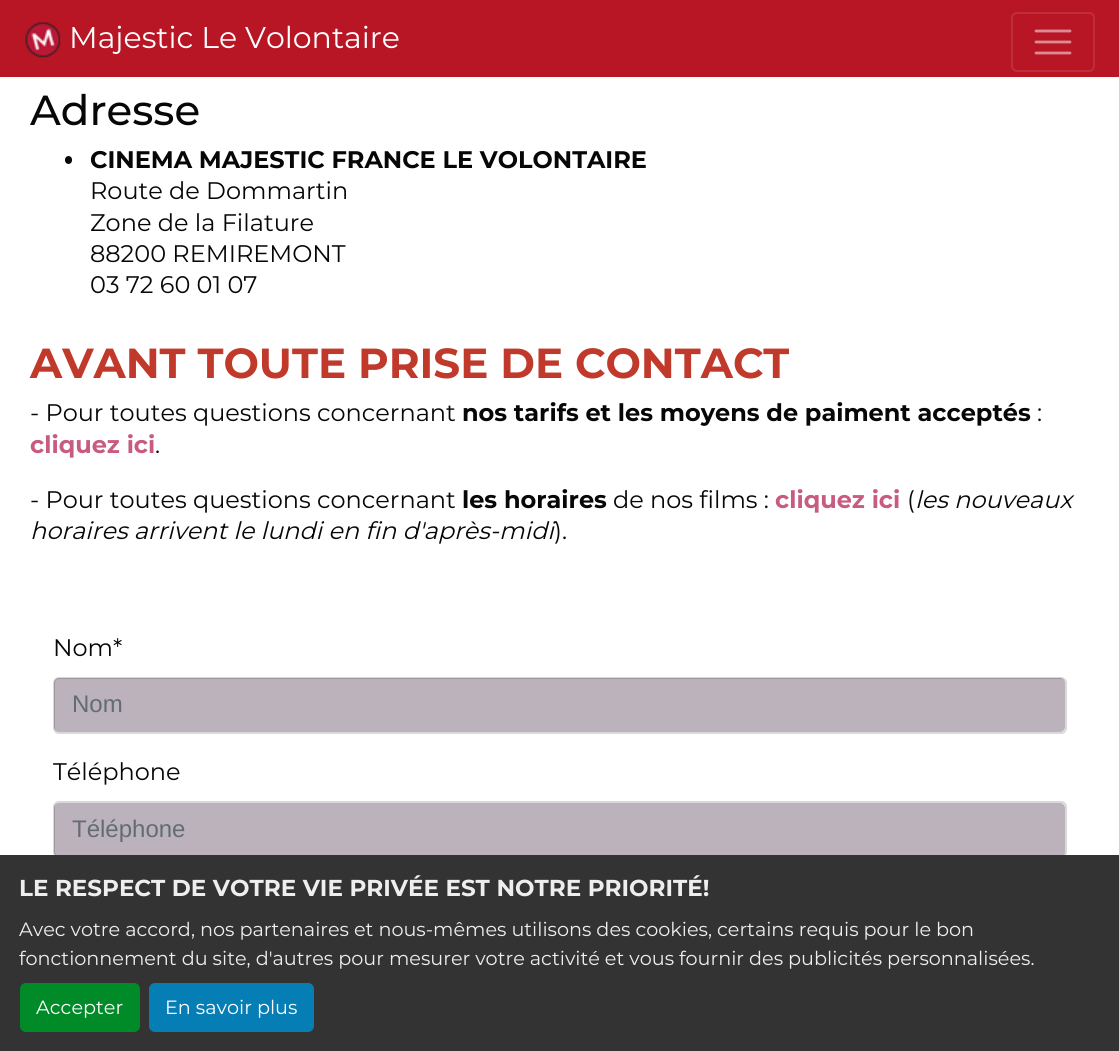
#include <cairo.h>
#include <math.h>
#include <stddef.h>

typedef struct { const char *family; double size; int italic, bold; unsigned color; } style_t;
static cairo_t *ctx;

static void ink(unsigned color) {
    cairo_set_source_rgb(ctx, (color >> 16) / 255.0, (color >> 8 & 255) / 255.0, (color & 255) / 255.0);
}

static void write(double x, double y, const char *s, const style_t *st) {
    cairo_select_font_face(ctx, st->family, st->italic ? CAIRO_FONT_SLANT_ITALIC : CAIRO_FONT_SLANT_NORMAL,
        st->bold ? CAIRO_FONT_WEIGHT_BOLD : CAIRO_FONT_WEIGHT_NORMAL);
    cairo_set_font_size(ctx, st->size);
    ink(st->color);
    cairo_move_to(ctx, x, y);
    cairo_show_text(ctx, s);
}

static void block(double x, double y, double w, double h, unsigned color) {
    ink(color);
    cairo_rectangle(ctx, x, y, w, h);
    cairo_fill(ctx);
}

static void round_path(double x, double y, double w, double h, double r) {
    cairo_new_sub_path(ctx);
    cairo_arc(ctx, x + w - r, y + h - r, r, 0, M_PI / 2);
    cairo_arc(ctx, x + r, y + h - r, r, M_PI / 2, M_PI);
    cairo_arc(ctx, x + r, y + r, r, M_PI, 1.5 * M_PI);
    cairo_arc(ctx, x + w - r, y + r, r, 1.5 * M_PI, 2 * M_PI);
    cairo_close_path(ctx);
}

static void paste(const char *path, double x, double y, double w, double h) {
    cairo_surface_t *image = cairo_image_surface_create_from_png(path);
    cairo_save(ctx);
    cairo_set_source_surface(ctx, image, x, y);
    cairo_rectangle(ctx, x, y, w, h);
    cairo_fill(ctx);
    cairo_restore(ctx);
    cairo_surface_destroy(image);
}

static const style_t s1 = {"Montserrat", 30, 0, 0, 0xffffff};
static const style_t s2 = {"Montserrat Medium", 42, 0, 0, 0x070707};
static const style_t s3 = {"Montserrat", 24, 0, 1, 0x070707};
static const style_t s4 = {"Montserrat", 24, 0, 0, 0x070707};
static const style_t s5 = {"Montserrat", 42, 0, 1, 0xc0392b};
static const style_t s6 = {"Montserrat", 24, 0, 1, 0xc85b81};
static const style_t s7 = {"Montserrat", 24, 1, 0, 0x070707};
static const style_t s8 = {"Liberation Sans", 24, 0, 0, 0x636c72};
static const style_t s9 = {"Montserrat", 23.05, 0, 1, 0xeeeeee};
static const style_t s10 = {"Montserrat", 19.2, 0, 0, 0xeeeeee};
static const style_t s11 = {"Montserrat", 19.2, 0, 0, 0xffffff};

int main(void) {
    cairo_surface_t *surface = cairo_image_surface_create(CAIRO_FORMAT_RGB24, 1119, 1051);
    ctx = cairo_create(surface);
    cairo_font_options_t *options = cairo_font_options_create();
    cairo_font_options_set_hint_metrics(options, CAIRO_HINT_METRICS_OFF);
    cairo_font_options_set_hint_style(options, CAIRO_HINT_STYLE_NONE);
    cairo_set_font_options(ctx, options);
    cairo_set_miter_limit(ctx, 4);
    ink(0xffffff);
    cairo_paint(ctx);
    block(0, 0, 1119, 77, 0xb91625);
    paste("pic1.png", 25, 22, 36, 36);
    write(69, 48, "Majestic Le Volontaire", &s1);
    round_path(1012, 13, 82, 58, 5);
    ink(0xc02d3b);
    cairo_stroke(ctx);
    cairo_new_path(ctx);
    cairo_move_to(ctx, 1036, 31);
    cairo_line_to(ctx, 1070, 31);
    cairo_move_to(ctx, 1036, 42);
    cairo_line_to(ctx, 1070, 42);
    cairo_move_to(ctx, 1036, 53);
    cairo_line_to(ctx, 1070, 53);
    ink(0xdc8b92);
    cairo_set_line_width(ctx, 2.8);
    cairo_set_line_cap(ctx, CAIRO_LINE_CAP_ROUND);
    cairo_stroke(ctx);
    write(30, 125, "Adresse", &s2);
    round_path(65, 156, 7, 8, 3.5);
    cairo_fill(ctx);
    write(90, 168, "CINEMA MAJESTIC FRANCE LE VOLONTAIRE", &s3);
    write(90, 199, "Route de Dommartin", &s4);
    write(90, 231, "Zone de la Filature", &s4);
    write(90, 262, "88200 REMIREMONT", &s4);
    write(90, 293, "03 72 60 01 07", &s4);
    write(30, 378, "AVANT TOUTE PRISE DE CONTACT", &s5);
    write(30, 421, "- Pour toutes questions concernant", &s4);
    write(462, 421, "nos tarifs et les moyens de paiment acceptés", &s3);
    write(1037, 421, ":", &s4);
    write(30, 453, "cliquez ici", &s6);
    write(155, 453, ".", &s4);
    write(30, 508, "- Pour toutes questions concernant", &s4);
    write(462, 508, "les horaires", &s3);
    write(613, 508, "de nos films :", &s4);
    write(775, 508, "cliquez ici", &s6);
    write(907, 508, "(", &s4);
    write(915, 508, "les nouveaux", &s7);
    write(30, 539, "horaires arrivent le lundi en fin d'après-midi", &s7);
    write(554, 539, ").", &s4);
    write(53, 656, "Nom*", &s4);
    ink(0xbbb2bc);
    round_path(54, 678, 1011, 54, 5);
    cairo_fill(ctx);
    round_path(54, 678, 1012, 55, 5);
    cairo_set_source_rgba(ctx, 0, 0, 0, 0.15);
    cairo_set_line_width(ctx, 2);
    cairo_set_line_cap(ctx, CAIRO_LINE_CAP_BUTT);
    cairo_stroke(ctx);
    write(72, 712, "Nom", &s8);
    write(53, 780, "Téléphone", &s4);
    ink(0xbbb2bc);
    round_path(54, 803, 1011, 54, 5);
    cairo_fill(ctx);
    round_path(54, 802, 1012, 55, 5);
    cairo_set_source_rgba(ctx, 0, 0, 0, 0.15);
    cairo_stroke(ctx);
    write(72, 837, "Téléphone", &s8);
    block(0, 855, 1119, 196, 0x333333);
    write(19, 896, "LE RESPECT DE VOTRE VIE PRIVÉE EST NOTRE PRIORITÉ!", &s9);
    write(19, 936, "Avec votre accord, nos partenaires et nous-mêmes utilisons des cookies, certains requis pour le bon", &s10);
    write(19, 965, "fonctionnement du site, d'autres pour mesurer votre activité et vous fournir des publicités personnalisées.", &s10);
    ink(0x008a28);
    round_path(20, 983, 120, 49, 6);
    cairo_fill(ctx);
    write(36, 1014, "Accepter", &s11);
    ink(0x057eb6);
    round_path(149, 983, 165, 49, 6);
    cairo_fill(ctx);
    write(165, 1014, "En savoir plus", &s11);
    cairo_surface_write_to_png(surface, "screenshot.png");
    cairo_font_options_destroy(options);
    cairo_destroy(ctx);
    cairo_surface_destroy(surface);
    return 0;
}
